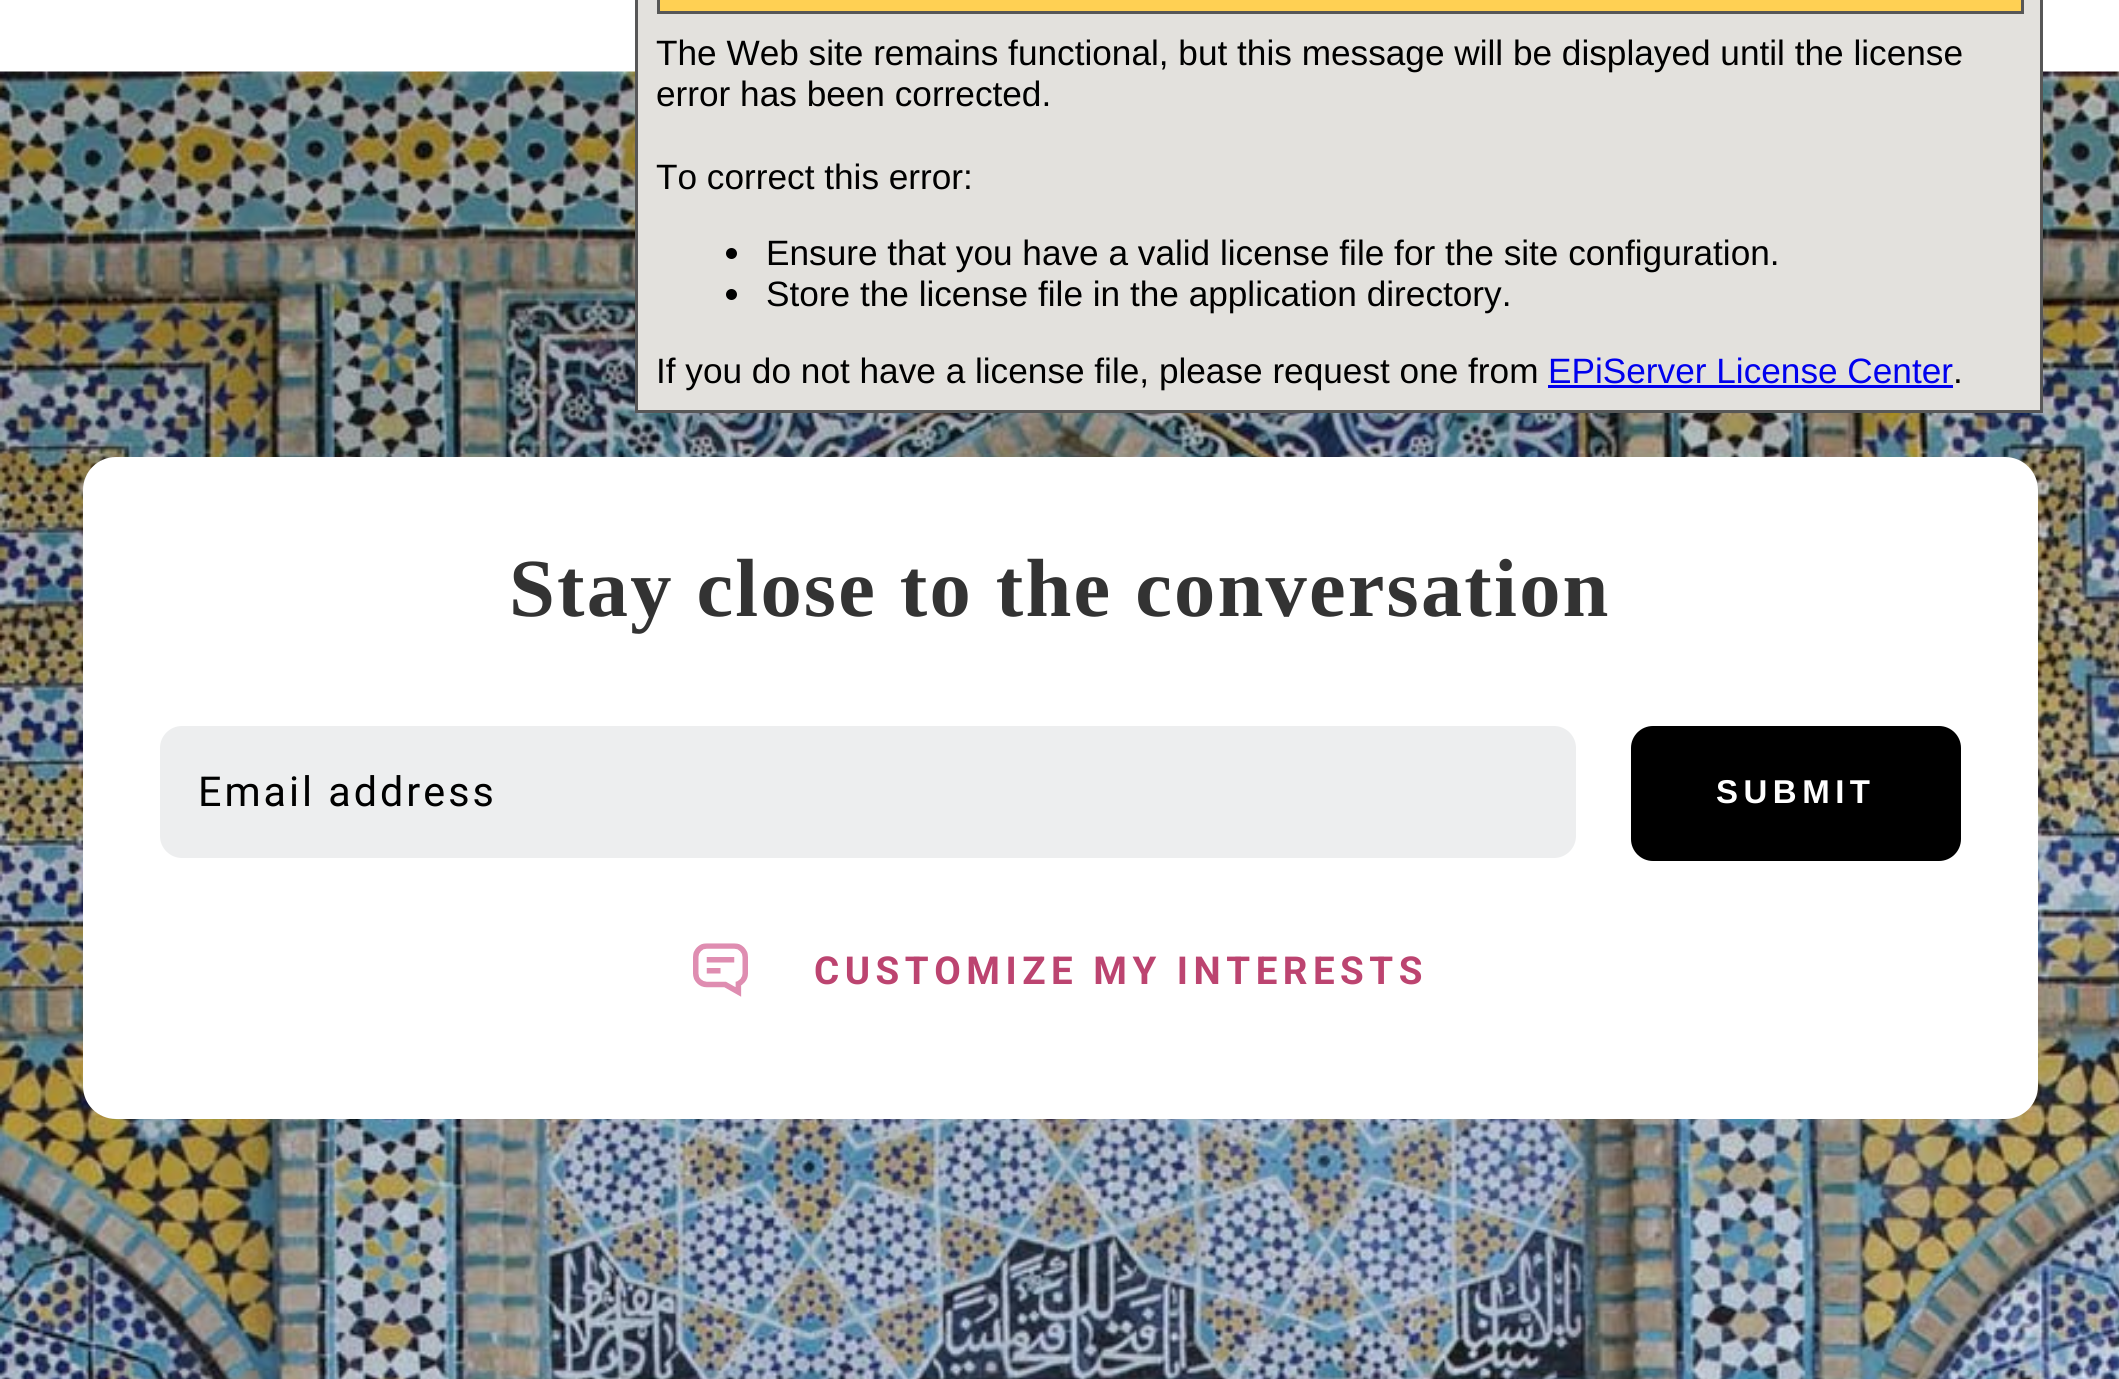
#include <cairo.h>
#include <math.h>
#include <stddef.h>

typedef struct { const char *family; double size; int italic, bold; unsigned color; } style_t;
static cairo_t *ctx;

static void ink(unsigned color) {
    cairo_set_source_rgb(ctx, (color >> 16) / 255.0, (color >> 8 & 255) / 255.0, (color & 255) / 255.0);
}

static void write(double x, double y, const char *s, const style_t *st) {
    cairo_select_font_face(ctx, st->family, st->italic ? CAIRO_FONT_SLANT_ITALIC : CAIRO_FONT_SLANT_NORMAL,
        st->bold ? CAIRO_FONT_WEIGHT_BOLD : CAIRO_FONT_WEIGHT_NORMAL);
    cairo_set_font_size(ctx, st->size);
    ink(st->color);
    cairo_move_to(ctx, x, y);
    cairo_show_text(ctx, s);
}

static void write_spaced(double x, double y, const char *s, double letter, double word) {
    cairo_move_to(ctx, x, y);
    while (*s) {
        char ch[5] = {0};
        int n = 0;
        do ch[n++] = *s++; while ((*s & 0xC0) == 0x80);
        cairo_show_text(ctx, ch);
        cairo_rel_move_to(ctx, letter + word * (*ch == ' '), 0);
    }
}

static void block(double x, double y, double w, double h, unsigned color) {
    ink(color);
    cairo_rectangle(ctx, x, y, w, h);
    cairo_fill(ctx);
}

static void round_path(double x, double y, double w, double h, double r) {
    cairo_new_sub_path(ctx);
    cairo_arc(ctx, x + w - r, y + h - r, r, 0, M_PI / 2);
    cairo_arc(ctx, x + r, y + h - r, r, M_PI / 2, M_PI);
    cairo_arc(ctx, x + r, y + r, r, M_PI, 1.5 * M_PI);
    cairo_arc(ctx, x + w - r, y + r, r, 1.5 * M_PI, 2 * M_PI);
    cairo_close_path(ctx);
}

static void paste(const char *path, double x, double y, double w, double h) {
    cairo_surface_t *image = cairo_image_surface_create_from_png(path);
    cairo_save(ctx);
    cairo_set_source_surface(ctx, image, x, y);
    cairo_rectangle(ctx, x, y, w, h);
    cairo_fill(ctx);
    cairo_restore(ctx);
    cairo_surface_destroy(image);
}

static const style_t s1 = {"Liberation Sans", 35.2, 0, 0, 0x000000};
static const style_t s2 = {"Liberation Sans", 35.2, 0, 0, 0x0000ee};

int main(void) {
    cairo_surface_t *surface = cairo_image_surface_create(CAIRO_FORMAT_RGB24, 2119, 1379);
    ctx = cairo_create(surface);
    cairo_font_options_t *options = cairo_font_options_create();
    cairo_font_options_set_hint_metrics(options, CAIRO_HINT_METRICS_OFF);
    cairo_font_options_set_hint_style(options, CAIRO_HINT_STYLE_NONE);
    cairo_set_font_options(ctx, options);
    cairo_set_miter_limit(ctx, 4);
    ink(0xffffff);
    cairo_paint(ctx);
    paste("pic1.png", 0, 71, 2119, 1308);
    ink(0xe3e1dd);
    cairo_rectangle(ctx, 636.5, -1.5, 1405, 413);
    cairo_fill_preserve(ctx);
    ink(0x575757);
    cairo_set_line_width(ctx, 3);
    cairo_stroke(ctx);
    ink(0xffd053);
    cairo_rectangle(ctx, 658.5, -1.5, 1364, 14);
    cairo_fill_preserve(ctx);
    ink(0x575757);
    cairo_stroke(ctx);
    write(656, 65, "The Web site remains functional, but this message will be displayed until the license", &s1);
    write(656, 106, "error has been corrected.", &s1);
    write(656, 189, "To correct this error:", &s1);
    cairo_new_path(ctx);
    cairo_arc(ctx, 731.5, 253.5, 5.5, 0, 2 * M_PI);
    cairo_fill(ctx);
    write(766, 265, "Ensure that you have a valid license file for the site configuration.", &s1);
    cairo_new_path(ctx);
    cairo_arc(ctx, 731.5, 294.5, 5.5, 0, 2 * M_PI);
    cairo_fill(ctx);
    write(766, 306, "Store the license file in the application directory.", &s1);
    write(656, 383, "If you do not have a license file, please request one from", &s1);
    write(1548, 383, "EPiServer License Center", &s2);
    block(1548, 385, 405, 3, 0x0000ee);
    write(1953, 383, ".", &s1);
    ink(0xffffff);
    round_path(83, 457, 1955, 662, 33);
    cairo_fill(ctx);
    cairo_select_font_face(ctx, "Liberation Serif", CAIRO_FONT_SLANT_NORMAL, CAIRO_FONT_WEIGHT_BOLD);
    cairo_set_font_size(ctx, 82.5);
    ink(0x333333);
    write_spaced(509, 616, "Stay close to the conversation", 2.2, 0);
    ink(0xedeeef);
    round_path(160, 726, 1416, 132, 22);
    cairo_fill(ctx);
    cairo_select_font_face(ctx, "Roboto", CAIRO_FONT_SLANT_NORMAL, CAIRO_FONT_WEIGHT_NORMAL);
    cairo_set_font_size(ctx, 41.25);
    ink(0x000000);
    write_spaced(198, 806, "Email address", 3, 0);
    round_path(1631, 726, 330, 135, 22);
    cairo_fill(ctx);
    cairo_select_font_face(ctx, "Liberation Sans", CAIRO_FONT_SLANT_NORMAL, CAIRO_FONT_WEIGHT_BOLD);
    cairo_set_font_size(ctx, 33);
    ink(0xffffff);
    write_spaced(1716, 803, "SUBMIT", 5.5, 0);
    paste("pic2.png", 693, 943, 55, 54);
    cairo_select_font_face(ctx, "Roboto", CAIRO_FONT_SLANT_NORMAL, CAIRO_FONT_WEIGHT_BOLD);
    cairo_set_font_size(ctx, 38.5);
    ink(0xbc4470);
    write_spaced(814, 984, "CUSTOMIZE MY INTERESTS", 5.5, 0);
    cairo_surface_write_to_png(surface, "screenshot.png");
    cairo_font_options_destroy(options);
    cairo_destroy(ctx);
    cairo_surface_destroy(surface);
    return 0;
}
